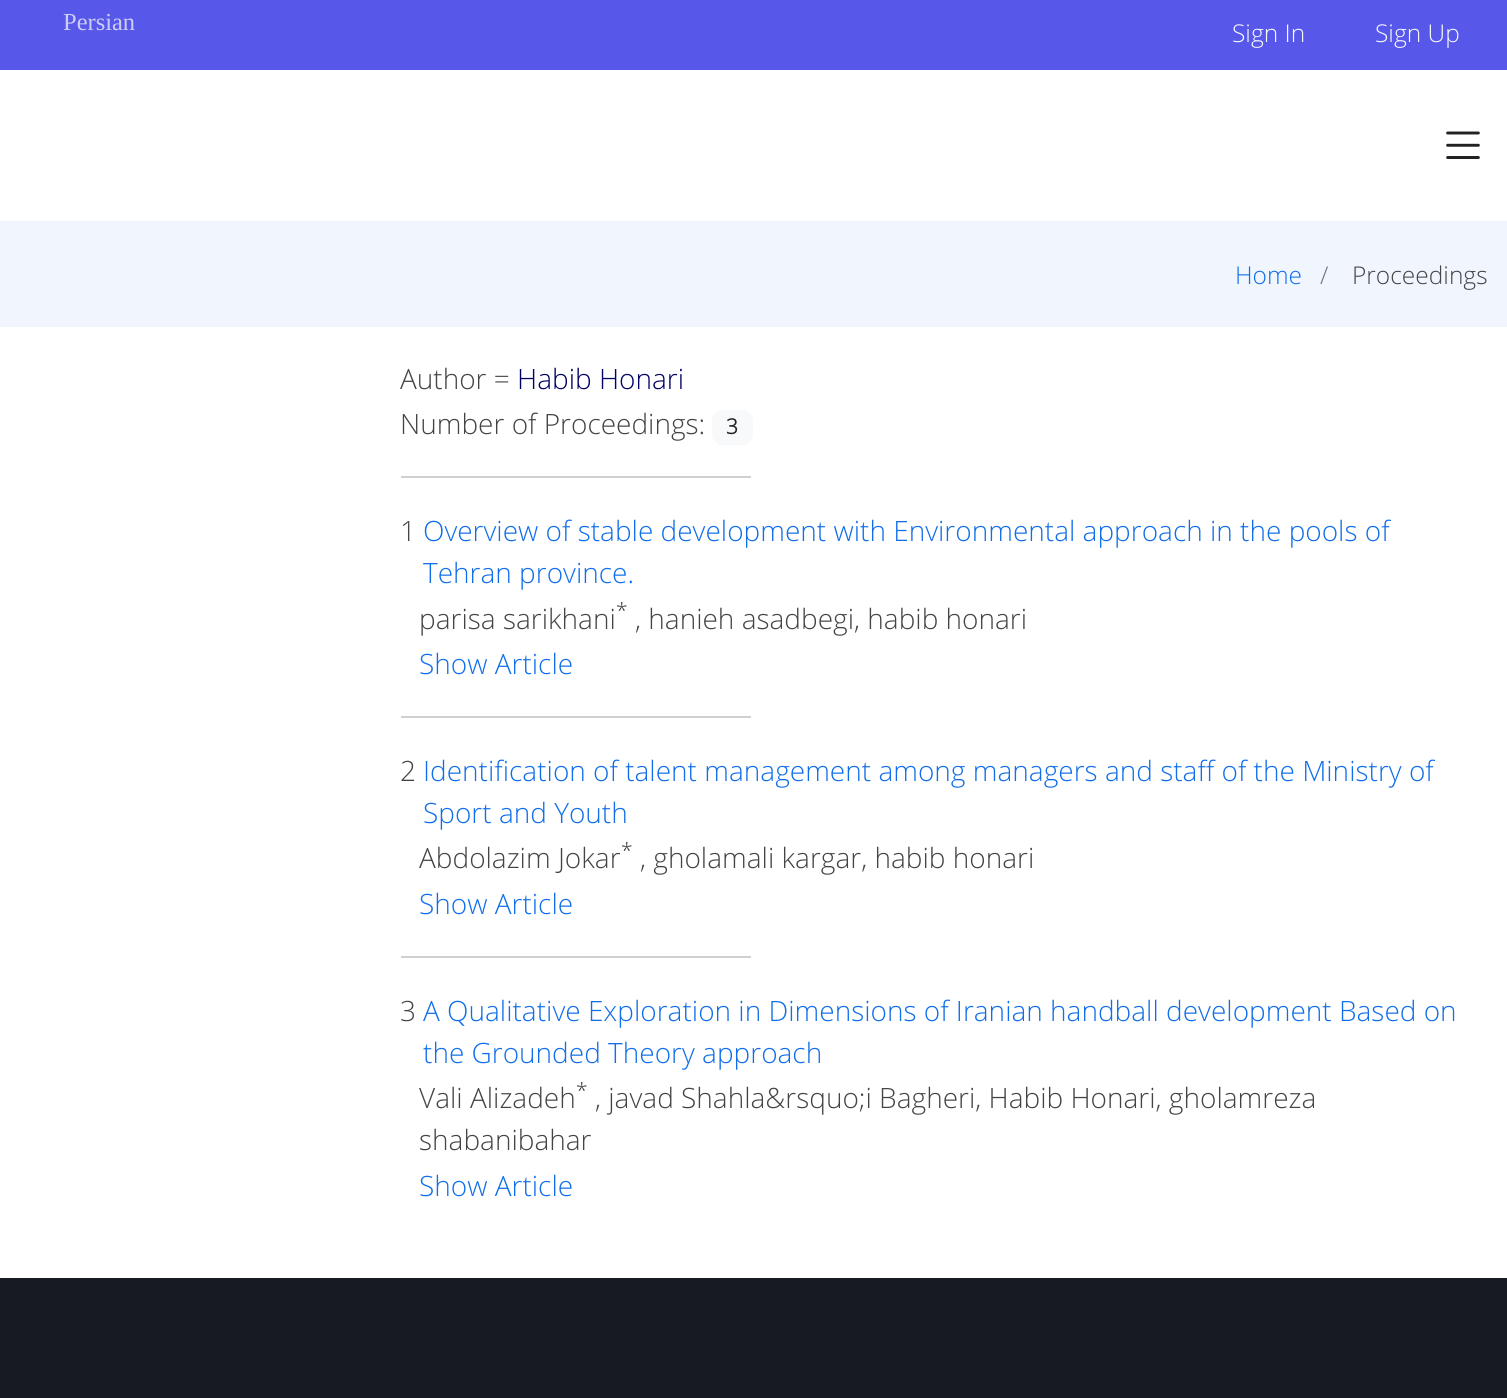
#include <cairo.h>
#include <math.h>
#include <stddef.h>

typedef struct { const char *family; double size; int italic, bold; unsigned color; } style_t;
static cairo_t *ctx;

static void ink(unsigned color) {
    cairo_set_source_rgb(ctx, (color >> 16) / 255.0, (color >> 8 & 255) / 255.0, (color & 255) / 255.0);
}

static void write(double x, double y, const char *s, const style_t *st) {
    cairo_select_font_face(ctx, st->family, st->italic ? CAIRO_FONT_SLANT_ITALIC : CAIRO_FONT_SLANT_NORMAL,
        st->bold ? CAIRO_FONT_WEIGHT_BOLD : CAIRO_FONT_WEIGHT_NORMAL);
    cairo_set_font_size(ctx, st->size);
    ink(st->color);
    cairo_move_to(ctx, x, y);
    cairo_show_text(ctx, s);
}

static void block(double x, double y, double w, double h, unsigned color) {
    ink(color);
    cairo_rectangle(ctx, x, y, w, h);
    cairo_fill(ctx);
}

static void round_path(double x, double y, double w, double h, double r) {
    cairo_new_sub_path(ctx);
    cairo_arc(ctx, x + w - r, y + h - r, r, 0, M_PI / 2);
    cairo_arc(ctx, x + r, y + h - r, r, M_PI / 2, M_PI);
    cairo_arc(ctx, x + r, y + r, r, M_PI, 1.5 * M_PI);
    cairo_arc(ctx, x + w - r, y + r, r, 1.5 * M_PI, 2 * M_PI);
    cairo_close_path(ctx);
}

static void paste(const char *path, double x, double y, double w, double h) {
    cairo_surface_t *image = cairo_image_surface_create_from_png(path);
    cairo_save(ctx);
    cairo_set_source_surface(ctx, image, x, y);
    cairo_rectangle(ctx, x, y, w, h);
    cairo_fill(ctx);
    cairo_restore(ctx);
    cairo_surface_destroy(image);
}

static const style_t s1 = {"Liberation Serif", 24.5, 0, 0, 0xcdcdf9};
static const style_t s2 = {"Open Sans Light", 24.5, 0, 0, 0xf8f9fa};
static const style_t s3 = {"Open Sans Light", 24.5, 0, 0, 0x106eea};
static const style_t s4 = {"Open Sans Light", 24.5, 0, 0, 0x6c757d};
static const style_t s5 = {"Open Sans Light", 24.5, 0, 0, 0x444444};
static const style_t s6 = {"Open Sans Light", 28, 0, 0, 0x444444};
static const style_t s7 = {"Open Sans Light", 28, 0, 0, 0x000065};
static const style_t s8 = {"Open Sans", 21, 0, 1, 0x212529};
static const style_t s9 = {"Open Sans Light", 28, 0, 0, 0x106eea};
static const style_t s10 = {"Open Sans Light", 21, 0, 0, 0x444444};

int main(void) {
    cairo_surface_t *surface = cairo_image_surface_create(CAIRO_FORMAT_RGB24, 1507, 1398);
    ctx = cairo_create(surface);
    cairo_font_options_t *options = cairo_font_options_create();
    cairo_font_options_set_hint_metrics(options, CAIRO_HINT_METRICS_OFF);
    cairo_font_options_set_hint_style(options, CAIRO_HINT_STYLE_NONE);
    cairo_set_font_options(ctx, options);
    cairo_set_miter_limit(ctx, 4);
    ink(0xffffff);
    cairo_paint(ctx);
    block(0, 0, 1507, 70, 0x5757ea);
    write(63, 30, "Persian", &s1);
    write(1232, 42, "Sign In", &s2);
    write(1375, 42, "Sign Up", &s2);
    paste("pic1.png", 1446, 131, 34, 28);
    block(0, 221, 1507, 106, 0xf1f6fe);
    write(1235, 284, "Home", &s3);
    write(1320, 284, "/", &s4);
    write(1352, 284, "Proceedings", &s5);
    write(400, 389, "Author =", &s6);
    write(517, 389, "Habib Honari", &s7);
    write(400, 434, "Number of Proceedings:", &s6);
    ink(0xf8f9fa);
    round_path(712, 410, 41, 35, 11);
    cairo_fill(ctx);
    write(726, 434, "3", &s8);
    block(401, 476, 350, 2, 0xd0d0d0);
    write(400, 541, "1", &s6);
    write(423, 541, "Overview of stable development with Environmental approach in the pools of", &s9);
    write(423, 583, "Tehran province.", &s9);
    write(419, 629, "parisa sarikhani", &s6);
    write(616, 618, "*", &s10);
    write(635, 629, ", hanieh asadbegi, habib honari", &s6);
    write(419, 674, "Show Article", &s9);
    block(401, 716, 350, 2, 0xd0d0d0);
    write(400, 781, "2", &s6);
    write(423, 781, "Identification of talent management among managers and staff of the Ministry of", &s9);
    write(423, 823, "Sport and Youth", &s9);
    write(419, 868, "Abdolazim Jokar", &s6);
    write(621, 858, "*", &s10);
    write(640, 868, ", gholamali kargar, habib honari", &s6);
    write(419, 914, "Show Article", &s9);
    block(401, 956, 350, 2, 0xd0d0d0);
    write(400, 1021, "3", &s6);
    write(423, 1021, "A Qualitative Exploration in Dimensions of Iranian handball development Based on", &s9);
    write(423, 1063, "the Grounded Theory approach", &s9);
    write(419, 1108, "Vali Alizadeh", &s6);
    write(576, 1098, "*", &s10);
    write(595, 1108, ", javad Shahla&rsquo;i Bagheri, Habib Honari, gholamreza", &s6);
    write(419, 1150, "shabanibahar", &s6);
    write(419, 1196, "Show Article", &s9);
    block(0, 1278, 1507, 120, 0x171a21);
    cairo_surface_write_to_png(surface, "screenshot.png");
    cairo_font_options_destroy(options);
    cairo_destroy(ctx);
    cairo_surface_destroy(surface);
    return 0;
}
